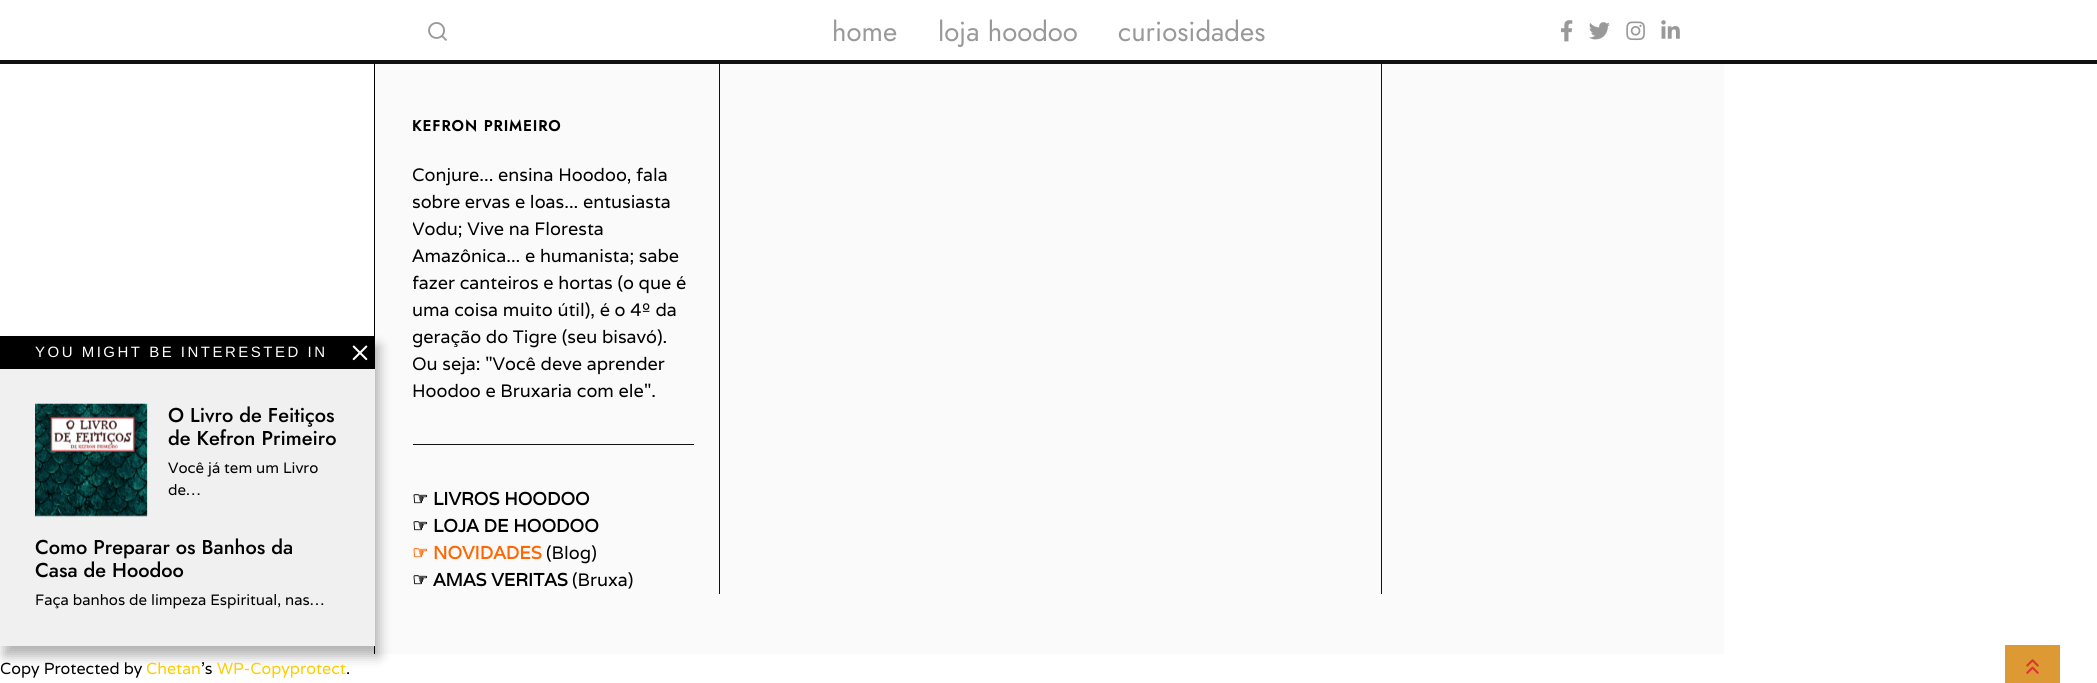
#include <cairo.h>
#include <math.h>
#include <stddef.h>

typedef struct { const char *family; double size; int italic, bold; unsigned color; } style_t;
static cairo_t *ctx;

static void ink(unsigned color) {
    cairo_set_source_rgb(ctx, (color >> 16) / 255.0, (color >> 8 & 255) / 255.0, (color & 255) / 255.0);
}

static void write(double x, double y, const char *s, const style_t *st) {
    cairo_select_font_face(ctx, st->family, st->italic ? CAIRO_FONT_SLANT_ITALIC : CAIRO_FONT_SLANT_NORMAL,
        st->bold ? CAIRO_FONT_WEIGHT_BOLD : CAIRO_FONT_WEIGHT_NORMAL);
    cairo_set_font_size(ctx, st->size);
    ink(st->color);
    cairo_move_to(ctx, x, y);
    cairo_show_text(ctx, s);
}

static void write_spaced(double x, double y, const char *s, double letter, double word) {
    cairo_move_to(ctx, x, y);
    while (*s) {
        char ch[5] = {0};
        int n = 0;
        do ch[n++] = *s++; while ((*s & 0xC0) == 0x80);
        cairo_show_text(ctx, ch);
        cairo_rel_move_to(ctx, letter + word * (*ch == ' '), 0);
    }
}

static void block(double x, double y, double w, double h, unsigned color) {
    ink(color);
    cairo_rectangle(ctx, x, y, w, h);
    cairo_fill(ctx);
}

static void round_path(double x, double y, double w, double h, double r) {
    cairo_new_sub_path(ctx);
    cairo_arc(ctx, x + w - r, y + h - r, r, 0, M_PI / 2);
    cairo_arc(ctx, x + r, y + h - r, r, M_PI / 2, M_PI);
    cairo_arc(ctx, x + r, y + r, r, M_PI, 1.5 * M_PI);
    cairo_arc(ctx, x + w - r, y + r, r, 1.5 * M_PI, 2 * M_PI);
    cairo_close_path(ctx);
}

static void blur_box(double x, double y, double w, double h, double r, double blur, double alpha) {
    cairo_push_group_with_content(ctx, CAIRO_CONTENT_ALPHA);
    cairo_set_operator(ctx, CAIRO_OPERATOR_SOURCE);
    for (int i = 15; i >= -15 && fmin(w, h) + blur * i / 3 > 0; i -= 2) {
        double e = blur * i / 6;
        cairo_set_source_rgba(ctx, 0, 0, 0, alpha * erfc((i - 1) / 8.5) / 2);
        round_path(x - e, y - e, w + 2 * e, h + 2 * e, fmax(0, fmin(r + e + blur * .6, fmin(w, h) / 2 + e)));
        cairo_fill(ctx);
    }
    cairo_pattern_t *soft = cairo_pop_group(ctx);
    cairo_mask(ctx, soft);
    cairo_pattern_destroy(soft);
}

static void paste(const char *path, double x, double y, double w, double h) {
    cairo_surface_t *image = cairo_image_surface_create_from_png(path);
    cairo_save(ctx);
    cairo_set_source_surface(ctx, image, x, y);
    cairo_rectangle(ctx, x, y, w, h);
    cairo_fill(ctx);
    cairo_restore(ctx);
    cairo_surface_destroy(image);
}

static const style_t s1 = {"Jost", 27.5, 0, 0, 0x999999};
static const style_t s2 = {"Jost Medium", 20, 0, 0, 0x000000};
static const style_t s3 = {"Varela", 15, 0, 0, 0x000000};
static const style_t s4 = {"Varela", 18, 0, 0, 0x000000};
static const style_t s5 = {"DejaVu Sans", 18, 0, 1, 0x000000};
static const style_t s6 = {"Varela", 18, 0, 1, 0x000000};
static const style_t s7 = {"DejaVu Sans", 18, 0, 1, 0xff6600};
static const style_t s8 = {"Varela", 18, 0, 1, 0xff6600};
static const style_t s9 = {"Varela", 16, 0, 0, 0x000000};
static const style_t s10 = {"Varela", 16, 0, 0, 0xffcc00};

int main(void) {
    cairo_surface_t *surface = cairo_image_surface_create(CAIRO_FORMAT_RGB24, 2097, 683);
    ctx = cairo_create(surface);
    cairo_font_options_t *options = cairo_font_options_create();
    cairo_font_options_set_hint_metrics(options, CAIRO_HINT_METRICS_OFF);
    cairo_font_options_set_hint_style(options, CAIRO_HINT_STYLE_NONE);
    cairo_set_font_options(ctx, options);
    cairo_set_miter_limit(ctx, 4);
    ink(0xffffff);
    cairo_paint(ctx);
    block(374, 64, 1, 590, 0x000000);
    paste("pic1.png", 428, 22, 19, 19);
    write(832, 41, "home", &s1);
    write(938, 41, "loja hoodoo", &s1);
    write(1118, 41, "curiosidades", &s1);
    paste("pic2.png", 1560, 20, 13, 22);
    paste("pic3.png", 1589, 22, 21, 18);
    paste("pic4.png", 1626, 21, 19, 20);
    paste("pic5.png", 1661, 20, 19, 19);
    block(0, 60, 2097, 4, 0x111111);
    block(375, 64, 1349, 590, 0xfafafa);
    ink(0x000000);
    blur_box(4, 346, 375, 310, 0, 6, 0.3);
    block(0, 369, 375, 277, 0xf0f0f0);
    block(0, 336, 374, 33, 0x000000);
    cairo_select_font_face(ctx, "Liberation Sans", CAIRO_FONT_SLANT_NORMAL, CAIRO_FONT_WEIGHT_NORMAL);
    cairo_set_font_size(ctx, 15);
    ink(0xffffff);
    write_spaced(35, 357, "YOU MIGHT BE INTERESTED IN", 2.5, 0);
    paste("pic6.png", 352, 345, 16, 16);
    block(35, 404, 113, 112, 0xffffff);
    paste("pic7.png", 35, 403, 113, 114);
    write(168, 422, "O Livro de Feitiços", &s2);
    write(168, 445, "de Kefron Primeiro", &s2);
    write(168, 473, "Você já tem um Livro", &s3);
    write(168, 495, "de…", &s3);
    write(35, 554, "Como Preparar os Banhos da", &s2);
    write(35, 577, "Casa de Hoodoo", &s2);
    write(35, 605, "Faça banhos de limpeza Espiritual, nas…", &s3);
    cairo_select_font_face(ctx, "Jost", CAIRO_FONT_SLANT_NORMAL, CAIRO_FONT_WEIGHT_BOLD);
    write_spaced(412, 131, "KEFRON PRIMEIRO", 1.25, 0);
    write(412, 181, "Conjure... ensina Hoodoo, fala", &s4);
    write(412, 208, "sobre ervas e loas... entusiasta", &s4);
    cairo_save(ctx);
    cairo_rectangle(ctx, 413, 0, 1275, 594);
    cairo_clip(ctx);
    write(412, 235, "Vodu; Vive na Floresta", &s4);
    cairo_restore(ctx);
    write(412, 262, "Amazônica... e humanista; sabe", &s4);
    cairo_save(ctx);
    cairo_rectangle(ctx, 413, 0, 1275, 594);
    cairo_clip(ctx);
    write(412, 289, "fazer canteiros e hortas (o que é", &s4);
    cairo_restore(ctx);
    write(412, 316, "uma coisa muito útil), é o 4º da", &s4);
    cairo_save(ctx);
    cairo_rectangle(ctx, 413, 0, 1275, 594);
    cairo_clip(ctx);
    write(412, 343, "geração do Tigre (seu bisavó).", &s4);
    cairo_restore(ctx);
    write(412, 370, "Ou seja: \"Você deve aprender", &s4);
    write(412, 397, "Hoodoo e Bruxaria com ele\".", &s4);
    block(413, 444, 281, 1, 0x111111);
    write(412, 505, "☞", &s5);
    write(433, 505, "LIVROS HOODOO", &s6);
    write(412, 532, "☞", &s5);
    write(433, 532, "LOJA DE HOODOO", &s6);
    write(412, 559, "☞", &s7);
    write(433, 559, "NOVIDADES", &s8);
    write(546, 559, "(Blog)", &s4);
    write(412, 586, "☞", &s5);
    write(433, 586, "AMAS VERITAS", &s6);
    write(572, 586, "(Bruxa)", &s4);
    block(719, 64, 1, 530, 0x111111);
    block(1381, 64, 1, 530, 0x111111);
    write(0, 674, "Copy Protected by", &s9);
    write(146, 674, "Chetan", &s10);
    write(201, 674, "'s", &s9);
    write(217, 674, "WP-Copyprotect", &s10);
    write(346, 674, ".", &s9);
    block(2005, 645, 55, 38, 0xdd9933);
    paste("pic8.png", 2026, 659, 13, 15);
    cairo_surface_write_to_png(surface, "screenshot.png");
    cairo_font_options_destroy(options);
    cairo_destroy(ctx);
    cairo_surface_destroy(surface);
    return 0;
}
